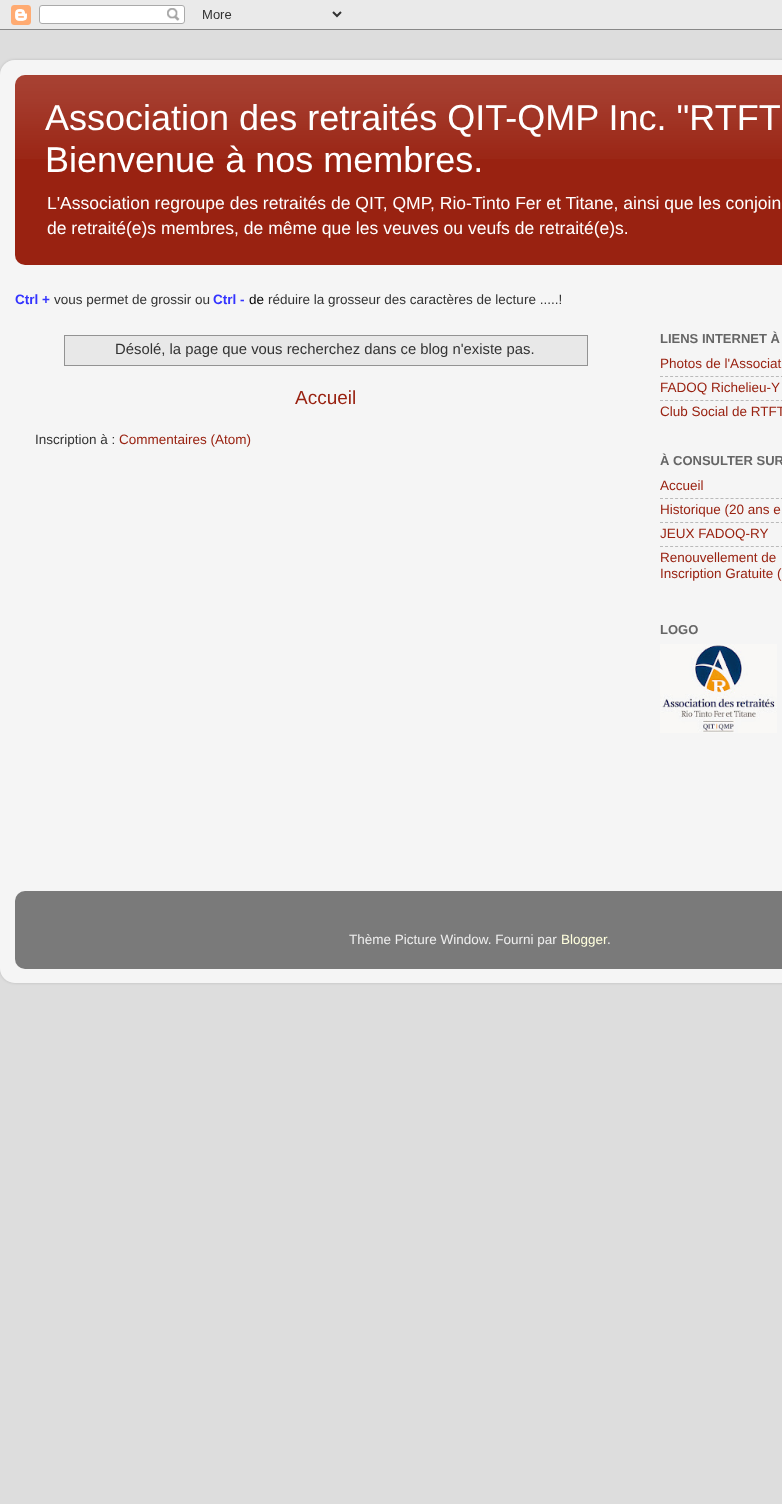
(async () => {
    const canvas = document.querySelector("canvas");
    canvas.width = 782;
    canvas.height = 1504;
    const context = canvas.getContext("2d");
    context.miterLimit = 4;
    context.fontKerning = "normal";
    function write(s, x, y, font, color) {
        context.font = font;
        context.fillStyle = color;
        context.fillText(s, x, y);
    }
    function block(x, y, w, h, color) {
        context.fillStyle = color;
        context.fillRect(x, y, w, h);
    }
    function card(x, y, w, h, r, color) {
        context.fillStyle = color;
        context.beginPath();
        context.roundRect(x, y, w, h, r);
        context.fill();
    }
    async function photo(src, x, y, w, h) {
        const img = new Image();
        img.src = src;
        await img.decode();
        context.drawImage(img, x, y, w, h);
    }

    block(0, 0, 782, 1504, "rgb(221, 221, 221)");
    await photo("media/1.png", 0, 0, 782, 30);
    context.save();
    context.beginPath();
    context.moveTo(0, 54);
    context.lineTo(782, 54);
    context.lineTo(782, 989);
    context.lineTo(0, 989);
    context.closePath();
    context.moveTo(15, 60);
    context.lineTo(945, 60);
    context.bezierCurveTo(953.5, 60, 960, 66.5, 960, 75);
    context.lineTo(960, 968);
    context.bezierCurveTo(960, 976.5, 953.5, 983, 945, 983);
    context.lineTo(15, 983);
    context.bezierCurveTo(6.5, 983, 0, 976.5, 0, 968);
    context.lineTo(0, 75);
    context.bezierCurveTo(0, 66.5, 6.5, 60, 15, 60);
    context.closePath();
    context.clip("evenodd");
    context.fillStyle = "rgba(0, 0, 0, 0.15)";
    context.filter = "blur(1.5px)";
    context.beginPath();
    context.roundRect(0, 60, 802, 923, 15);
    context.fill();
    context.filter = "none";
    context.restore();
    await photo("media/2.png", 0, 60, 782, 923);
    card(15, 75, 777, 190, 10, "rgb(153, 34, 17)");
    await photo("media/3.png", 15, 75, 767, 84);
    write("Association des retraités QIT-QMP Inc. \"RTFT", 45, 130, "36px Liberation Sans", "rgb(255, 255, 255)");
    write("Bienvenue à nos membres.", 45, 172, "36px Liberation Sans", "rgb(255, 255, 255)");
    write("L'Association regroupe des retraités de QIT, QMP, Rio-Tinto Fer et Titane, ainsi que les conjoin", 47, 209, "17.55px Liberation Sans", "rgb(255, 255, 255)");
    write("de retraité(e)s membres, de même que les veuves ou veufs de retraité(e)s.", 47, 234, "17.55px Liberation Sans", "rgb(255, 255, 255)");
    write("Ctrl +", 15, 304, "bold 13.5px Liberation Sans", "rgb(51, 51, 255)");
    write("vous permet de grossir ou", 54, 304, "13.5px Liberation Sans", "rgb(51, 51, 51)");
    write("Ctrl -", 213, 304, "bold 13.5px Liberation Sans", "rgb(51, 51, 255)");
    write("de", 249, 304, "13.5px Liberation Sans", "rgb(0, 0, 0)");
    write("réduire la grosseur des caractères de lecture .....!", 268, 304, "13.5px Liberation Sans", "rgb(51, 51, 51)");
    context.strokeStyle = "rgb(147, 147, 147)";
    context.strokeRect(64.5, 335.5, 523, 30);
    block(65, 336, 522, 29, "rgb(232, 232, 232)");
    write("Désolé, la page que vous recherchez dans ce blog n'existe pas.", 115, 354, "14.85px Liberation Sans", "rgb(51, 51, 51)");
    write("Accueil", 295, 404, "19px Liberation Sans", "rgb(153, 34, 17)");
    write("Inscription à :", 35, 444, "13.5px Liberation Sans", "rgb(51, 51, 51)");
    write("Commentaires (Atom)", 119, 444, "13.5px Liberation Sans", "rgb(153, 34, 17)");
    write("LIENS INTERNET À", 660, 343, "bold 13px Liberation Sans", "rgb(102, 102, 102)");
    write("Photos de l'Associat", 660, 368, "13.5px Liberation Sans", "rgb(153, 34, 17)");
    context.beginPath();
    context.moveTo(660, 376.5);
    context.lineTo(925, 376.5);
    context.strokeStyle = "rgb(186, 186, 186)";
    context.setLineDash([3, 2.04]);
    context.stroke();
    write("FADOQ Richelieu-Y", 660, 392, "13.5px Liberation Sans", "rgb(153, 34, 17)");
    context.beginPath();
    context.moveTo(660, 400.5);
    context.lineTo(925, 400.5);
    context.stroke();
    write("Club Social de RTFT", 660, 416, "13.5px Liberation Sans", "rgb(153, 34, 17)");
    write("À CONSULTER SUR", 660, 465, "bold 13px Liberation Sans", "rgb(102, 102, 102)");
    write("Accueil", 660, 490, "13.5px Liberation Sans", "rgb(153, 34, 17)");
    context.beginPath();
    context.moveTo(660, 498.5);
    context.lineTo(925, 498.5);
    context.stroke();
    write("Historique (20 ans e", 660, 514, "13.5px Liberation Sans", "rgb(153, 34, 17)");
    context.beginPath();
    context.moveTo(660, 522.5);
    context.lineTo(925, 522.5);
    context.stroke();
    write("JEUX FADOQ-RY", 660, 538, "13.5px Liberation Sans", "rgb(153, 34, 17)");
    context.beginPath();
    context.moveTo(660, 546.5);
    context.lineTo(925, 546.5);
    context.stroke();
    write("Renouvellement de", 660, 562, "13.5px Liberation Sans", "rgb(153, 34, 17)");
    write("Inscription Gratuite (", 660, 578, "13.5px Liberation Sans", "rgb(153, 34, 17)");
    write("LOGO", 660, 634, "bold 13px Liberation Sans", "rgb(102, 102, 102)");
    await photo("media/4.png", 660, 644, 117, 89);
    await photo("media/5.png", 15, 891, 767, 78);
    write("Thème Picture Window. Fourni par", 349, 944, "13.5px Liberation Sans", "rgb(238, 238, 238)");
    write("Blogger", 561, 944, "13.5px Liberation Sans", "rgb(255, 255, 221)");
    write(".", 607, 944, "13.5px Liberation Sans", "rgb(238, 238, 238)");
})();
